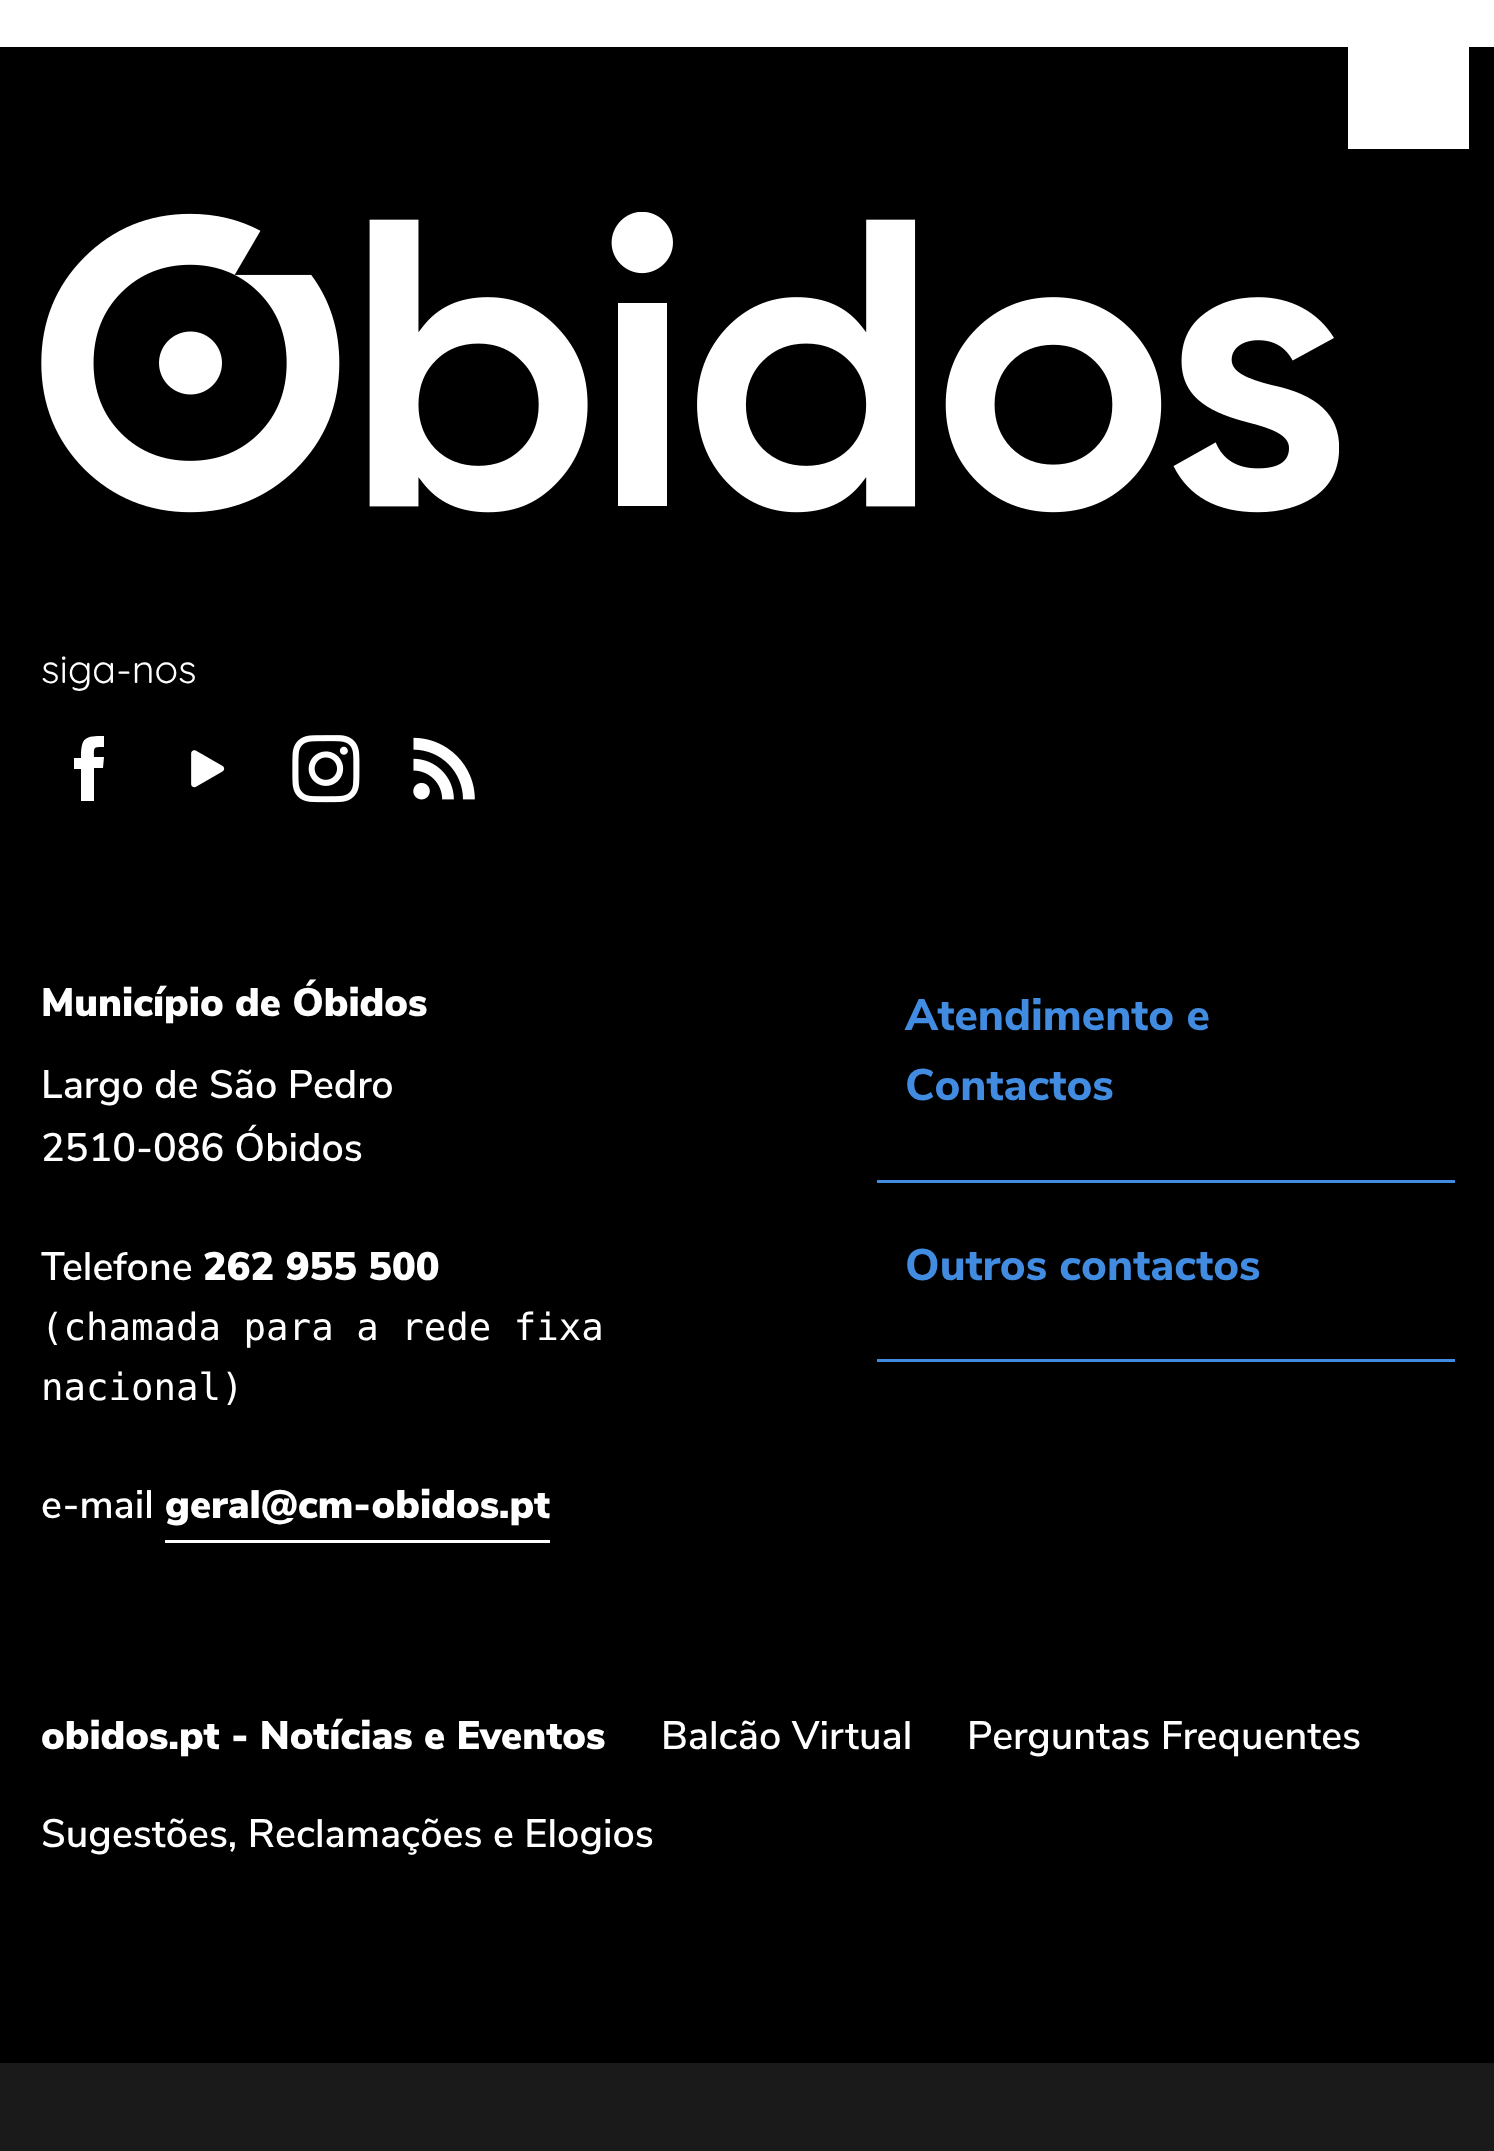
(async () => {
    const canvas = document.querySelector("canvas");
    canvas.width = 1494;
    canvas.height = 2151;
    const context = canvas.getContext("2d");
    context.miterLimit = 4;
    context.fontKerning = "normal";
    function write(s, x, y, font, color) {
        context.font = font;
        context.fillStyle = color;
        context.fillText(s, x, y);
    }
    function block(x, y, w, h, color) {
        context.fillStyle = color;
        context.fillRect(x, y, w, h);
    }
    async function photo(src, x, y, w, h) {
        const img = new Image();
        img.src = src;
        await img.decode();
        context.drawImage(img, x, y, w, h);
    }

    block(0, 0, 1494, 2151, "rgb(255, 255, 255)");
    block(0, 47, 1494, 2016, "rgb(0, 0, 0)");
    block(1348, 47, 121, 102, "rgb(255, 255, 255)");
    await photo("media/1.png", 41, 212, 1298, 301);
    write("siga-nos", 41, 683, "300 39.6px Quicksand", "rgb(255, 255, 255)");
    context.beginPath();
    context.moveTo(94, 801);
    context.lineTo(81, 801);
    context.lineTo(81, 769);
    context.lineTo(74, 769);
    context.lineTo(74, 758);
    context.lineTo(81, 758);
    context.bezierCurveTo(81, 737, 85, 736, 104, 736);
    context.lineTo(104, 747);
    context.bezierCurveTo(93, 747, 94, 747, 94, 757);
    context.lineTo(104, 757);
    context.lineTo(103, 768);
    context.lineTo(94, 768);
    context.closePath();
    context.fill();
    await photo("media/2.png", 191, 750, 34, 38);
    await photo("media/3.png", 292, 735, 68, 68);
    await photo("media/4.png", 413, 737, 62, 63);
    write("Município de Óbidos", 41, 1016, "900 39.6px Nunito Sans", "rgb(255, 255, 255)");
    write("Largo de São Pedro", 41, 1098, "600 39.6px Nunito Sans", "rgb(255, 255, 255)");
    write("2510-086 Óbidos", 41, 1161, "600 39.6px Nunito Sans", "rgb(255, 255, 255)");
    write("Telefone", 41, 1280, "600 39.6px Nunito Sans", "rgb(255, 255, 255)");
    write("262 955 500", 203, 1280, "900 39.6px Nunito Sans", "rgb(255, 255, 255)");
    write("(chamada para a rede fixa", 41, 1340, "37.4px DejaVu Sans Mono", "rgb(255, 255, 255)");
    write("nacional)", 41, 1400, "37.4px DejaVu Sans Mono", "rgb(255, 255, 255)");
    write("e-mail", 41, 1518, "600 39.6px Nunito Sans", "rgb(255, 255, 255)");
    write("geral@cm-obidos.pt", 165, 1518, "900 39.6px Nunito Sans", "rgb(255, 255, 255)");
    block(165, 1540, 385, 3, "rgb(255, 255, 255)");
    block(877, 1180, 578, 3, "rgb(65, 140, 225)");
    write("Atendimento e", 905, 1030, "800 44px Nunito Sans", "rgb(65, 140, 225)");
    write("Contactos", 905, 1100, "800 44px Nunito Sans", "rgb(65, 140, 225)");
    block(877, 1359, 578, 3, "rgb(65, 140, 225)");
    write("Outros contactos", 905, 1280, "800 44px Nunito Sans", "rgb(65, 140, 225)");
    write("obidos.pt - Notícias e Eventos", 41, 1749, "900 39.6px Nunito Sans", "rgb(255, 255, 255)");
    write("Balcão Virtual", 661, 1749, "600 39.6px Nunito Sans", "rgb(255, 255, 255)");
    write("Perguntas Frequentes", 967, 1749, "600 39.6px Nunito Sans", "rgb(255, 255, 255)");
    write("Sugestões, Reclamações e Elogios", 41, 1847, "600 39.6px Nunito Sans", "rgb(255, 255, 255)");
    block(0, 2063, 1494, 88, "rgb(26, 26, 26)");
})();
